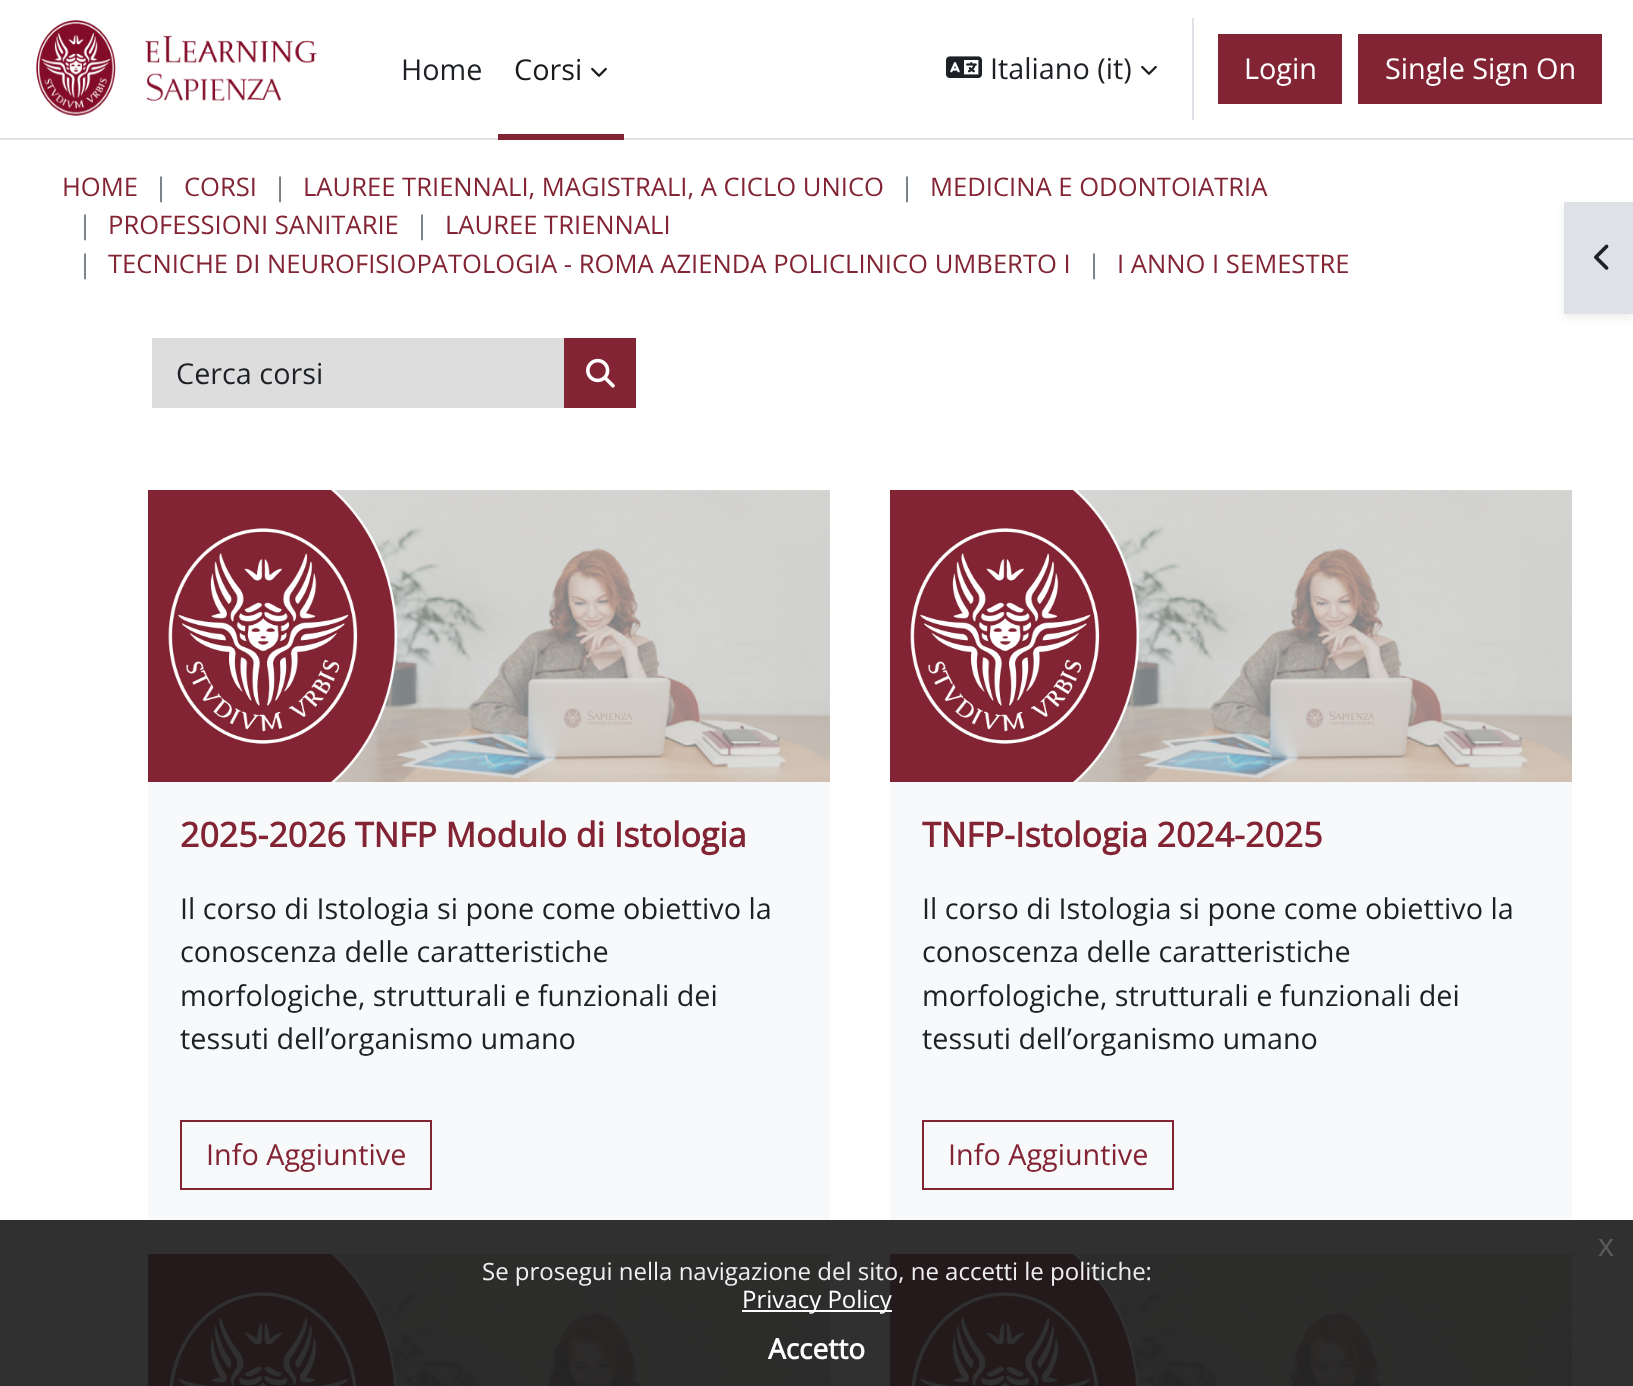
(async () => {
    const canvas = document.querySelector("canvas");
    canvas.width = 1633;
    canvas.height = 1386;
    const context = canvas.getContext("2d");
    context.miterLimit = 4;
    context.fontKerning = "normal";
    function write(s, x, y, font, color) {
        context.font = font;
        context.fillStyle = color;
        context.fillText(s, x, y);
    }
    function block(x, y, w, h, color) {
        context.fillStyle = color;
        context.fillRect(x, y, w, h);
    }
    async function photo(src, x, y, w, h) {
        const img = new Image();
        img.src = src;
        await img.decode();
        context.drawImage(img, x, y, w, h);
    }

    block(0, 0, 1633, 1386, "rgb(255, 255, 255)");
    block(0, 1220, 1633, 166, "rgb(48, 48, 48)");
    block(0, 138, 1633, 2, "rgb(222, 226, 230)");
    await photo("media/1.png", 36, 20, 281, 96);
    write("Home", 401, 80, "28.8px Open Sans", "rgb(29, 33, 37)");
    block(498, 134, 126, 6, "rgb(130, 36, 51)");
    write("Corsi", 514, 80, "28.8px Open Sans", "rgb(26, 26, 26)");
    await photo("media/2.png", 591, 67, 16, 10);
    await photo("media/3.png", 946, 56, 36, 22);
    write("Italiano (it)", 990, 79, "28.8px Open Sans", "rgb(29, 33, 37)");
    await photo("media/4.png", 1141, 65, 16, 10);
    block(1192, 18, 2, 102, "rgb(222, 226, 230)");
    block(1218, 34, 124, 70, "rgb(130, 36, 51)");
    write("Login", 1244, 79, "28.8px Open Sans", "rgb(255, 255, 255)");
    block(1358, 34, 244, 70, "rgb(130, 36, 51)");
    write("Single Sign On", 1385, 79, "28.8px Open Sans", "rgb(255, 255, 255)");
    write("HOME", 62, 196, "25.6px Open Sans", "rgb(130, 36, 51)");
    write("|", 154, 196, "25.6px Open Sans", "rgb(106, 115, 123)");
    write("CORSI", 184, 196, "25.6px Open Sans", "rgb(130, 36, 51)");
    write("|", 273, 196, "25.6px Open Sans", "rgb(106, 115, 123)");
    write("LAUREE TRIENNALI, MAGISTRALI, A CICLO UNICO", 303, 196, "25.6px Open Sans", "rgb(130, 36, 51)");
    write("|", 900, 196, "25.6px Open Sans", "rgb(106, 115, 123)");
    write("MEDICINA E ODONTOIATRIA", 930, 196, "25.6px Open Sans", "rgb(130, 36, 51)");
    write("|", 78, 234, "25.6px Open Sans", "rgb(106, 115, 123)");
    write("PROFESSIONI SANITARIE", 108, 234, "25.6px Open Sans", "rgb(130, 36, 51)");
    write("|", 415, 234, "25.6px Open Sans", "rgb(106, 115, 123)");
    write("LAUREE TRIENNALI", 445, 234, "25.6px Open Sans", "rgb(130, 36, 51)");
    write("|", 78, 273, "25.6px Open Sans", "rgb(106, 115, 123)");
    write("TECNICHE DI NEUROFISIOPATOLOGIA - ROMA AZIENDA POLICLINICO UMBERTO I", 108, 273, "25.6px Open Sans", "rgb(130, 36, 51)");
    write("|", 1087, 273, "25.6px Open Sans", "rgb(106, 115, 123)");
    write("I ANNO I SEMESTRE", 1117, 273, "25.6px Open Sans", "rgb(130, 36, 51)");
    context.fillStyle = "rgba(0, 0, 0, 0.07)";
    context.filter = "blur(4px)";
    context.beginPath();
    context.rect(1564, 206, 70, 112);
    context.fill();
    context.filter = "none";
    block(1564, 202, 69, 112, "rgb(222, 226, 230)");
    await photo("media/5.png", 1594, 244, 15, 26);
    block(152, 338, 412, 70, "rgb(221, 221, 221)");
    write("Cerca corsi", 176, 384, "28.8px Open Sans", "rgb(29, 33, 37)");
    block(564, 338, 72, 70, "rgb(130, 36, 51)");
    await photo("media/6.png", 586, 358, 29, 30);
    block(148, 782, 682, 438, "rgb(248, 249, 250)");
    await photo("media/7.png", 148, 490, 682, 292);
    write("2025-2026 TNFP Modulo di Istologia", 180, 847, "bold 33.9px Open Sans", "rgb(130, 36, 51)");
    write("Il corso di Istologia si pone come obiettivo la", 180, 919, "28.8px Open Sans", "rgb(29, 33, 37)");
    write("conoscenza delle caratteristiche", 180, 962, "28.8px Open Sans", "rgb(29, 33, 37)");
    write("morfologiche, strutturali e funzionali dei", 180, 1006, "28.8px Open Sans", "rgb(29, 33, 37)");
    write("tessuti dell’organismo umano", 180, 1049, "28.8px Open Sans", "rgb(29, 33, 37)");
    context.strokeStyle = "rgb(130, 36, 51)";
    context.lineWidth = 2;
    context.strokeRect(181, 1121, 250, 68);
    write("Info Aggiuntive", 206, 1165, "28.8px Open Sans", "rgb(130, 36, 51)");
    block(890, 782, 682, 438, "rgb(248, 249, 250)");
    await photo("media/7.png", 890, 490, 682, 292);
    write("TNFP-Istologia 2024-2025", 922, 847, "bold 33.9px Open Sans", "rgb(130, 36, 51)");
    write("Il corso di Istologia si pone come obiettivo la", 922, 919, "28.8px Open Sans", "rgb(29, 33, 37)");
    write("conoscenza delle caratteristiche", 922, 962, "28.8px Open Sans", "rgb(29, 33, 37)");
    write("morfologiche, strutturali e funzionali dei", 922, 1006, "28.8px Open Sans", "rgb(29, 33, 37)");
    write("tessuti dell’organismo umano", 922, 1049, "28.8px Open Sans", "rgb(29, 33, 37)");
    context.strokeRect(923, 1121, 250, 68);
    write("Info Aggiuntive", 948, 1165, "28.8px Open Sans", "rgb(130, 36, 51)");
    await photo("media/8.png", 148, 1254, 682, 132);
    await photo("media/8.png", 890, 1254, 682, 132);
    write("x", 1598, 1256, "32px Liberation Sans", "rgb(89, 89, 89)");
    write("Se prosegui nella navigazione del sito, ne accetti le politiche:", 482, 1280, "24px Open Sans", "rgb(239, 239, 239)");
    block(742, 1310, 150, 2, "rgb(255, 255, 255)");
    write("Privacy Policy", 742, 1308, "24px Open Sans", "rgb(255, 255, 255)");
    write("Accetto", 768, 1359, "bold 28px Open Sans", "rgb(255, 255, 255)");
})();
